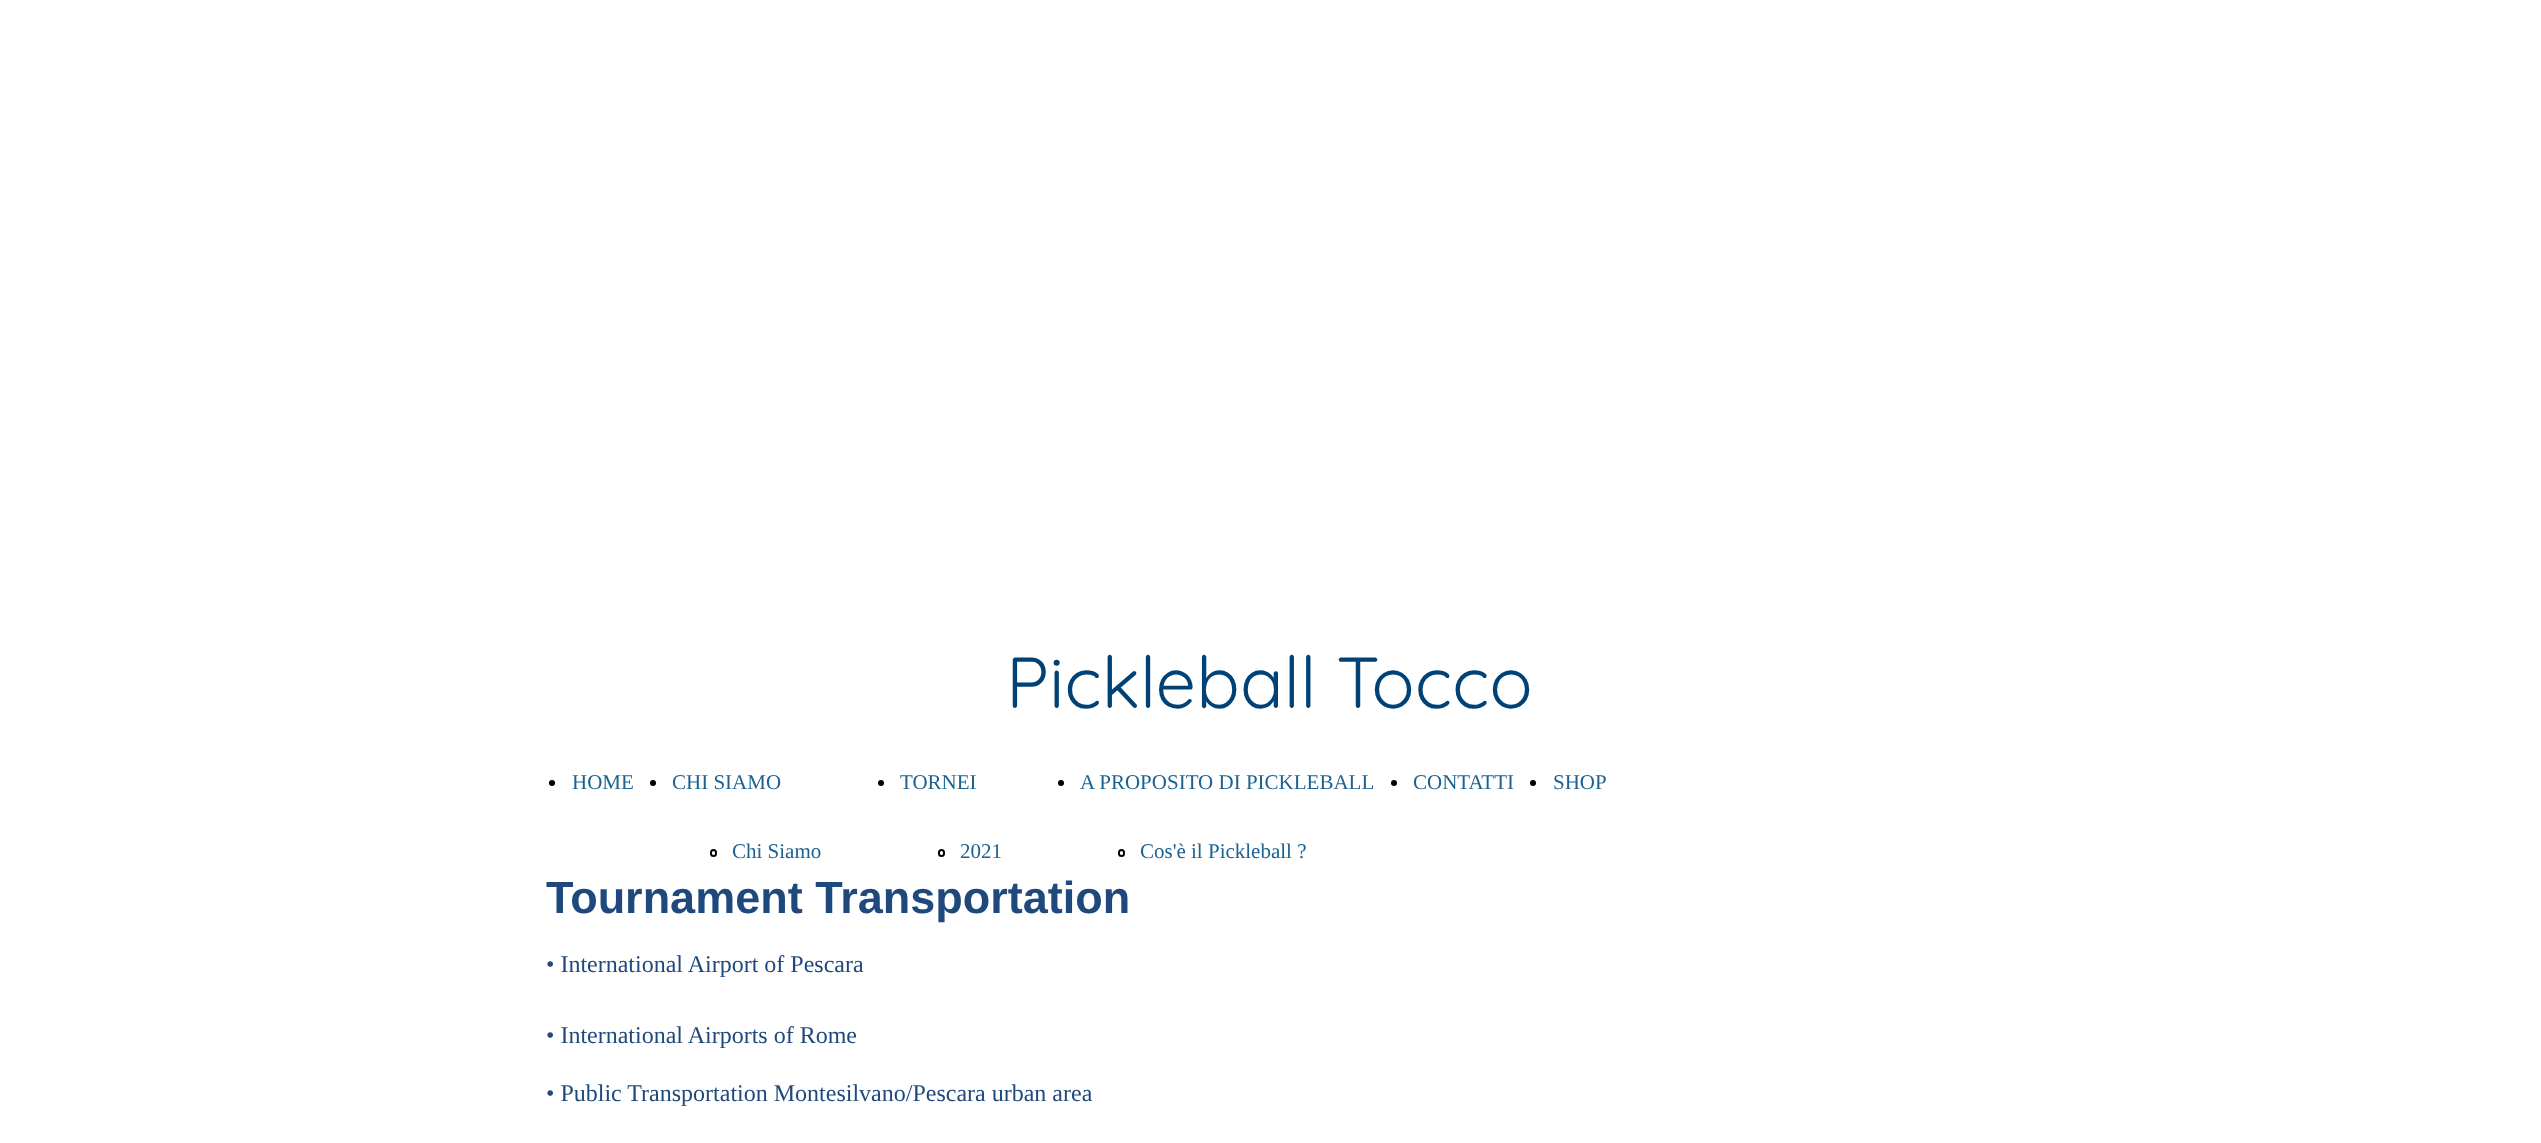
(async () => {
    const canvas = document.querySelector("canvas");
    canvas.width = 2541;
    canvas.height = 1143;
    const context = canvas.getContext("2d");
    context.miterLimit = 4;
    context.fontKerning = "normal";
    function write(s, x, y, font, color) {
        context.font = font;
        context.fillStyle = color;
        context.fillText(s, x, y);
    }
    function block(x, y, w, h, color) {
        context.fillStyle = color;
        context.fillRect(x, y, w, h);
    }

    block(0, 0, 2541, 1143, "rgb(255, 255, 255)");
    write("Pickleball Tocco", 1006, 708, "72px Quicksand", "rgb(0, 66, 118)");
    context.fillStyle = "rgb(0, 0, 0)";
    context.beginPath();
    context.arc(552, 783, 3, 0, Math.PI * 2);
    context.fill();
    write("HOME", 572, 789, "21px Liberation Serif", "rgb(28, 98, 144)");
    context.fillStyle = "rgb(0, 0, 0)";
    context.beginPath();
    context.arc(653, 783, 3, 0, Math.PI * 2);
    context.fill();
    write("CHI SIAMO", 672, 789, "21px Liberation Serif", "rgb(28, 98, 144)");
    context.beginPath();
    context.roundRect(711, 850, 5, 6, 2.5);
    context.strokeStyle = "rgb(0, 0, 0)";
    context.lineWidth = 2;
    context.stroke();
    write("Chi Siamo", 732, 858, "21px Liberation Serif", "rgb(28, 98, 144)");
    context.fillStyle = "rgb(0, 0, 0)";
    context.beginPath();
    context.arc(881, 783, 3, 0, Math.PI * 2);
    context.fill();
    write("TORNEI", 900, 789, "21px Liberation Serif", "rgb(28, 98, 144)");
    context.beginPath();
    context.roundRect(939, 850, 5, 6, 2.5);
    context.stroke();
    write("2021", 960, 858, "21px Liberation Serif", "rgb(28, 98, 144)");
    context.fillStyle = "rgb(0, 0, 0)";
    context.beginPath();
    context.arc(1061, 783, 3, 0, Math.PI * 2);
    context.fill();
    write("A PROPOSITO DI PICKLEBALL", 1080, 789, "21px Liberation Serif", "rgb(28, 98, 144)");
    context.beginPath();
    context.roundRect(1119, 850, 5, 6, 2.5);
    context.stroke();
    write("Cos'è il Pickleball ?", 1140, 858, "21px Liberation Serif", "rgb(28, 98, 144)");
    context.fillStyle = "rgb(0, 0, 0)";
    context.beginPath();
    context.arc(1394, 783, 3, 0, Math.PI * 2);
    context.fill();
    write("CONTATTI", 1413, 789, "21px Liberation Serif", "rgb(28, 98, 144)");
    context.fillStyle = "rgb(0, 0, 0)";
    context.beginPath();
    context.arc(1533, 783, 3, 0, Math.PI * 2);
    context.fill();
    write("SHOP", 1553, 789, "21px Liberation Serif", "rgb(28, 98, 144)");
    write("Tournament Transportation", 546, 913, "bold 45px Liberation Sans", "rgb(31, 73, 125)");
    write("• International Airport of Pescara", 546, 972, "24px Liberation Serif", "rgb(31, 73, 125)");
    write("• International Airports of Rome", 546, 1043, "24px Liberation Serif", "rgb(31, 73, 125)");
    write("• Public Transportation Montesilvano/Pescara urban area", 546, 1101, "24px Liberation Serif", "rgb(31, 73, 125)");
})();
